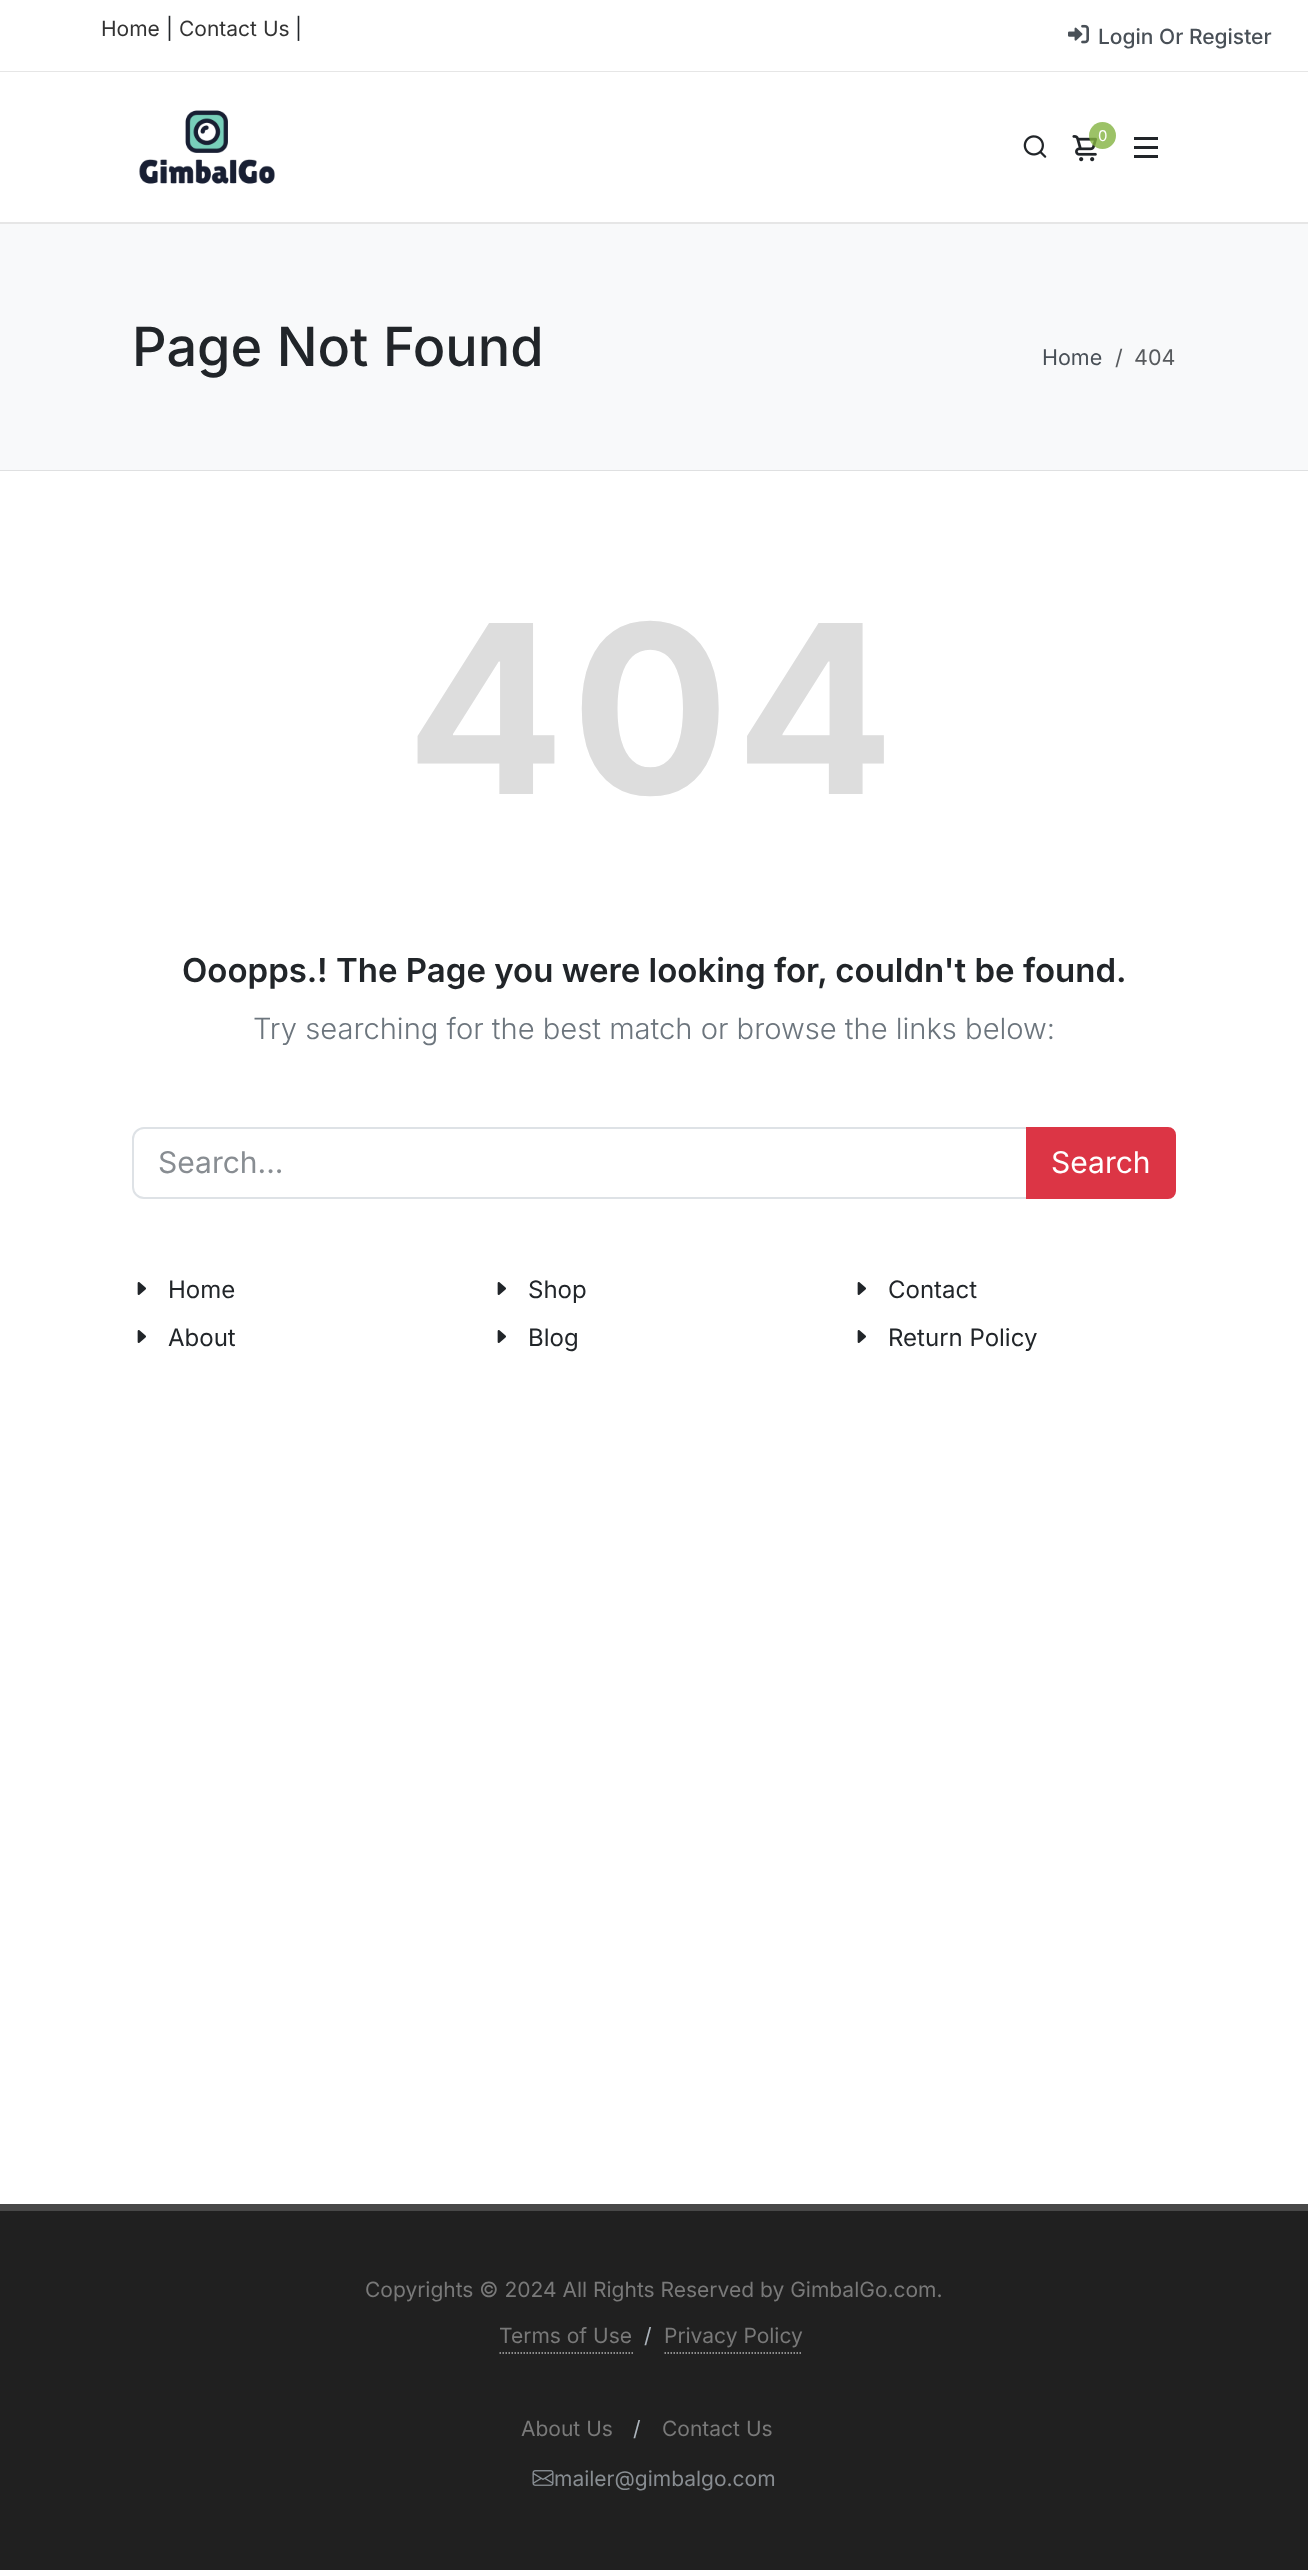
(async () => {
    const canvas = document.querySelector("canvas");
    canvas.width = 1308;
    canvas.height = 2570;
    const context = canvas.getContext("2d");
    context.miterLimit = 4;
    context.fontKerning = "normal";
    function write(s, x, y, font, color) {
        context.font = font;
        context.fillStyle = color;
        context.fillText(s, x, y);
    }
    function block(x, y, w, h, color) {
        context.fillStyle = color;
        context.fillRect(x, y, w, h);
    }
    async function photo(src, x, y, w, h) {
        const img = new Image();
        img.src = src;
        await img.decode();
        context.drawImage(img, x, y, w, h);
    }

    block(0, 0, 1308, 2570, "rgb(255, 255, 255)");
    block(0, 71, 1308, 1, "rgb(230, 230, 230)");
    write("Home", 101, 36, "21px Inter", "rgb(51, 51, 51)");
    write("|", 166, 36, "21px Inter", "rgb(33, 37, 41)");
    write("Contact Us", 179, 36, "21px Inter", "rgb(51, 51, 51)");
    write("|", 295, 36, "21px Inter", "rgb(33, 37, 41)");
    await photo("media/1.png", 1068, 24, 21, 20);
    write("Login Or Register", 1098, 44, "500 21px Inter", "rgb(73, 80, 87)");
    block(0, 222, 1308, 2, "rgb(230, 230, 230)");
    await photo("media/2.png", 139, 110, 136, 74);
    await photo("media/3.png", 1023, 135, 24, 23);
    await photo("media/4.png", 1072, 135, 25, 27);
    context.fillStyle = "rgba(131, 179, 65, 0.8)";
    context.beginPath();
    context.arc(1102.5, 135.5, 13.5, 0, Math.PI * 2);
    context.fill();
    write("0", 1098, 141, "15px Inter", "rgb(255, 255, 255)");
    block(1134, 146, 24, 3, "rgb(33, 37, 41)");
    block(1134, 137, 24, 3, "rgb(33, 37, 41)");
    block(1134, 155, 24, 3, "rgb(33, 37, 41)");
    block(0, 224, 1308, 246, "rgb(248, 249, 250)");
    block(0, 470, 1308, 1, "rgb(223, 224, 225)");
    write("Page Not Found", 132, 366, "500 54px Inter", "rgb(33, 37, 41)");
    write("Home", 1042, 365, "21.5px Inter", "rgb(73, 80, 87)");
    write("/", 1115, 365, "21.5px Inter", "rgb(87, 90, 93)");
    write("404", 1134, 365, "21.5px Inter", "rgb(87, 90, 93)");
    context.letterSpacing = "6px";
    write("404", 406, 794, "bold 235px Inter", "rgb(221, 221, 221)");
    context.letterSpacing = "0px";
    write("Ooopps.! The Page you were looking for, couldn't be found.", 182, 982, "600 33px Inter", "rgb(33, 37, 41)");
    write("Try searching for the best match or browse the links below:", 253, 1039, "300 29.15px Inter", "rgb(108, 117, 125)");
    context.beginPath();
    context.roundRect(133, 1128, 894, 70, [11, 0, 0, 11]);
    context.strokeStyle = "rgb(222, 226, 230)";
    context.lineWidth = 2;
    context.stroke();
    write("Search...", 158, 1173, "30px Inter", "rgb(136, 141, 146)");
    context.fillStyle = "rgb(220, 53, 69)";
    context.beginPath();
    context.roundRect(1027, 1128, 148, 70, [0, 7, 7, 0]);
    context.fill();
    context.strokeStyle = "rgb(220, 53, 69)";
    context.stroke();
    write("Search", 1051, 1173, "30px Inter", "rgb(255, 255, 255)");
    await photo("media/5.png", 137, 1282, 9, 13);
    write("Home", 168, 1298, "24px Inter", "rgb(33, 37, 41)");
    await photo("media/5.png", 137, 1330, 9, 13);
    write("About", 168, 1346, "24px Inter", "rgb(33, 37, 41)");
    await photo("media/5.png", 497, 1282, 9, 13);
    write("Shop", 528, 1298, "24px Inter", "rgb(33, 37, 41)");
    await photo("media/5.png", 497, 1330, 9, 13);
    write("Blog", 528, 1346, "24px Inter", "rgb(33, 37, 41)");
    await photo("media/5.png", 857, 1282, 9, 13);
    write("Contact", 888, 1298, "24px Inter", "rgb(33, 37, 41)");
    await photo("media/5.png", 857, 1330, 9, 13);
    write("Return Policy", 888, 1346, "24px Inter", "rgb(33, 37, 41)");
    block(0, 2204, 1308, 7, "rgb(72, 72, 72)");
    block(0, 2211, 1308, 359, "rgb(32, 32, 32)");
    write("Copyrights © 2024 All Rights Reserved by GimbalGo.com.", 365, 2297, "21px Inter", "rgb(121, 121, 121)");
    context.beginPath();
    context.moveTo(499.5, 2353);
    context.lineTo(633, 2353);
    context.strokeStyle = "rgb(177, 177, 177)";
    context.lineWidth = 1.5;
    context.setLineDash([1.5, 1.5]);
    context.stroke();
    write("Terms of Use", 499, 2343, "21px Inter", "rgb(121, 121, 121)");
    write("/", 644, 2343, "21px Inter", "rgb(173, 181, 189)");
    context.beginPath();
    context.moveTo(664.5, 2353);
    context.lineTo(802.5, 2353);
    context.stroke();
    write("Privacy Policy", 664, 2343, "21px Inter", "rgb(121, 121, 121)");
    write("About Us", 521, 2436, "21px Inter", "rgb(121, 121, 121)");
    write("/", 633, 2436, "21px Inter", "rgb(173, 181, 189)");
    write("Contact Us", 662, 2436, "21px Inter", "rgb(121, 121, 121)");
    await photo("media/6.png", 532, 2470, 22, 16);
    write("mailer@gimbalgo.com", 554, 2486, "21px Inter", "rgb(136, 141, 146)");
})();
